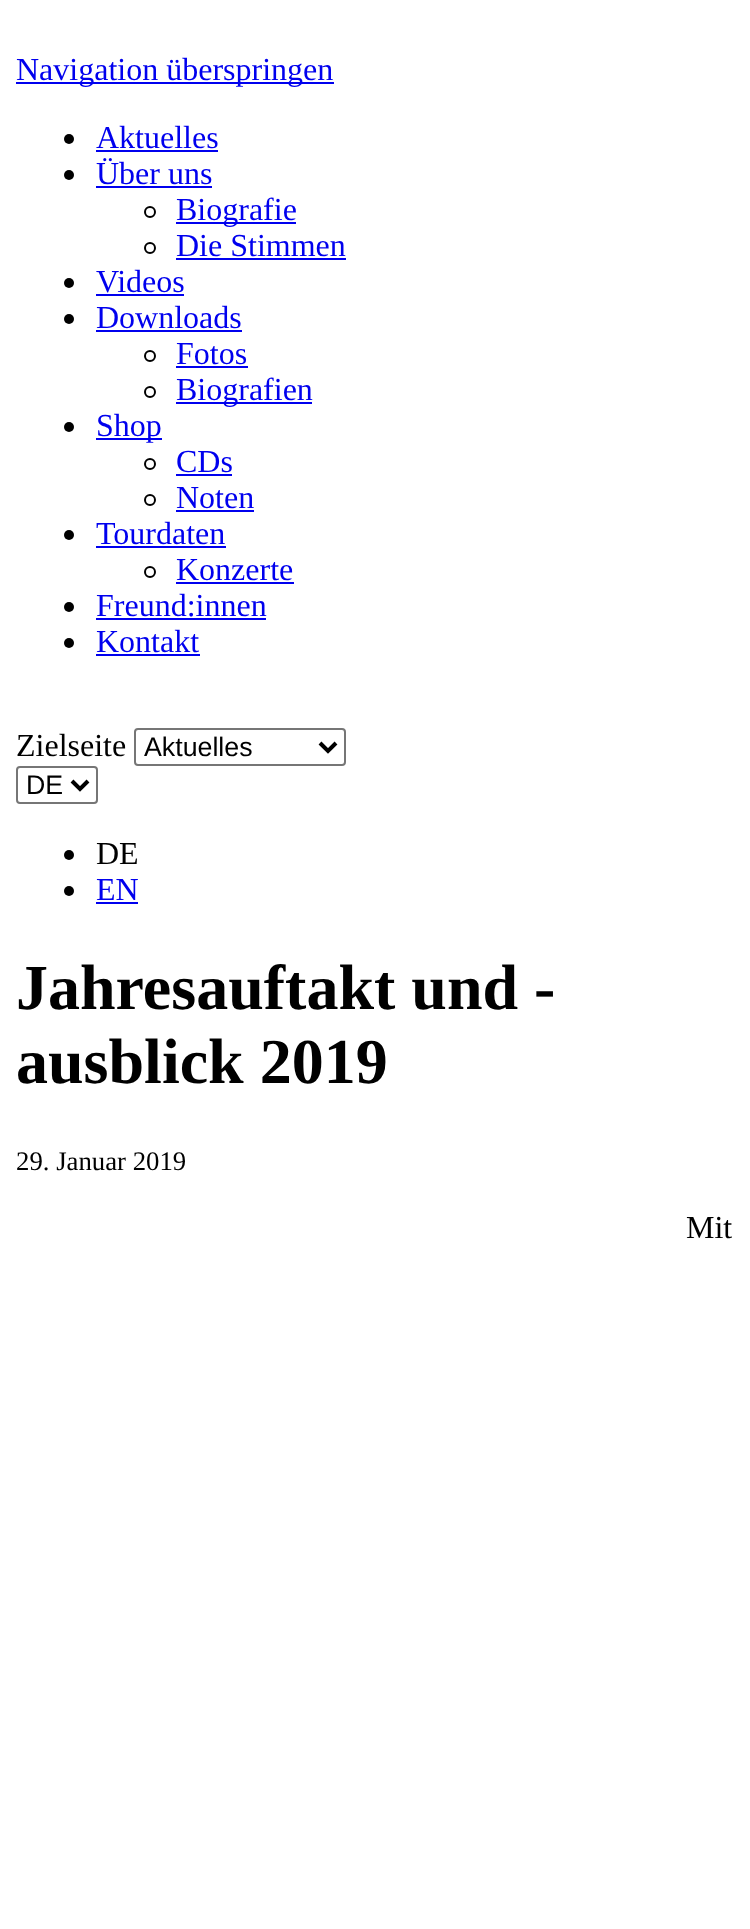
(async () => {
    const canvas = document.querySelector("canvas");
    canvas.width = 750;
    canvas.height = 1929;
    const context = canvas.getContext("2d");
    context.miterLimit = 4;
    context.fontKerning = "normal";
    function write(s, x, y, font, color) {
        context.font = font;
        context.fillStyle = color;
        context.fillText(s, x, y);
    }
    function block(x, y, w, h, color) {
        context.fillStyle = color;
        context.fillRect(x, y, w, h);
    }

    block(0, 0, 750, 1929, "rgb(255, 255, 255)");
    block(16, 82, 318, 2, "rgb(0, 0, 238)");
    write("Navigation überspringen", 16, 80, "32px Liberation Serif", "rgb(0, 0, 238)");
    context.fillStyle = "rgb(0, 0, 0)";
    context.beginPath();
    context.arc(69, 139, 5, 0, Math.PI * 2);
    context.fill();
    write("Aktuelles", 96, 148, "32px Liberation Serif", "rgb(0, 0, 238)");
    block(96, 150, 122, 2, "rgb(0, 0, 238)");
    context.fillStyle = "rgb(0, 0, 0)";
    context.beginPath();
    context.arc(69, 175, 5, 0, Math.PI * 2);
    context.fill();
    write("Über uns", 96, 184, "32px Liberation Serif", "rgb(0, 0, 238)");
    block(96, 186, 116, 2, "rgb(0, 0, 238)");
    context.beginPath();
    context.arc(150, 212, 5, 0, Math.PI * 2);
    context.strokeStyle = "rgb(0, 0, 0)";
    context.lineWidth = 2;
    context.stroke();
    block(176, 222, 120, 2, "rgb(0, 0, 238)");
    write("Biografie", 176, 220, "32px Liberation Serif", "rgb(0, 0, 238)");
    context.beginPath();
    context.arc(150, 248, 5, 0, Math.PI * 2);
    context.stroke();
    write("Die Stimmen", 176, 256, "32px Liberation Serif", "rgb(0, 0, 238)");
    block(176, 258, 170, 2, "rgb(0, 0, 238)");
    context.fillStyle = "rgb(0, 0, 0)";
    context.beginPath();
    context.arc(69, 283, 5, 0, Math.PI * 2);
    context.fill();
    write("Videos", 96, 292, "32px Liberation Serif", "rgb(0, 0, 238)");
    block(96, 294, 88, 2, "rgb(0, 0, 238)");
    context.fillStyle = "rgb(0, 0, 0)";
    context.beginPath();
    context.arc(69, 319, 5, 0, Math.PI * 2);
    context.fill();
    write("Downloads", 96, 328, "32px Liberation Serif", "rgb(0, 0, 238)");
    block(96, 330, 146, 2, "rgb(0, 0, 238)");
    context.beginPath();
    context.arc(150, 356, 5, 0, Math.PI * 2);
    context.stroke();
    write("Fotos", 176, 364, "32px Liberation Serif", "rgb(0, 0, 238)");
    block(176, 366, 72, 2, "rgb(0, 0, 238)");
    context.beginPath();
    context.arc(150, 392, 5, 0, Math.PI * 2);
    context.stroke();
    block(176, 402, 136, 2, "rgb(0, 0, 238)");
    write("Biografien", 176, 400, "32px Liberation Serif", "rgb(0, 0, 238)");
    context.fillStyle = "rgb(0, 0, 0)";
    context.beginPath();
    context.arc(69, 427, 5, 0, Math.PI * 2);
    context.fill();
    block(96, 438, 66, 2, "rgb(0, 0, 238)");
    write("Shop", 96, 436, "32px Liberation Serif", "rgb(0, 0, 238)");
    context.beginPath();
    context.arc(150, 464, 5, 0, Math.PI * 2);
    context.stroke();
    write("CDs", 176, 472, "32px Liberation Serif", "rgb(0, 0, 238)");
    block(176, 474, 56, 2, "rgb(0, 0, 238)");
    context.beginPath();
    context.arc(150, 500, 5, 0, Math.PI * 2);
    context.stroke();
    write("Noten", 176, 508, "32px Liberation Serif", "rgb(0, 0, 238)");
    block(176, 510, 78, 2, "rgb(0, 0, 238)");
    context.fillStyle = "rgb(0, 0, 0)";
    context.beginPath();
    context.arc(69, 535, 5, 0, Math.PI * 2);
    context.fill();
    write("Tourdaten", 96, 544, "32px Liberation Serif", "rgb(0, 0, 238)");
    block(96, 546, 130, 2, "rgb(0, 0, 238)");
    context.beginPath();
    context.arc(150, 572, 5, 0, Math.PI * 2);
    context.stroke();
    write("Konzerte", 176, 580, "32px Liberation Serif", "rgb(0, 0, 238)");
    block(176, 582, 118, 2, "rgb(0, 0, 238)");
    context.fillStyle = "rgb(0, 0, 0)";
    context.beginPath();
    context.arc(69, 607, 5, 0, Math.PI * 2);
    context.fill();
    write("Freund:innen", 96, 616, "32px Liberation Serif", "rgb(0, 0, 238)");
    block(96, 618, 170, 2, "rgb(0, 0, 238)");
    context.fillStyle = "rgb(0, 0, 0)";
    context.beginPath();
    context.arc(69, 643, 5, 0, Math.PI * 2);
    context.fill();
    write("Kontakt", 96, 652, "32px Liberation Serif", "rgb(0, 0, 238)");
    block(96, 654, 104, 2, "rgb(0, 0, 238)");
    write("Zielseite", 16, 756, "32px Liberation Serif", "rgb(0, 0, 0)");
    context.beginPath();
    context.roundRect(135, 729, 210, 36, 3);
    context.strokeStyle = "rgb(118, 118, 118)";
    context.stroke();
    context.beginPath();
    context.moveTo(320, 743);
    context.lineTo(328, 751);
    context.lineTo(336, 743);
    context.strokeStyle = "rgb(0, 0, 0)";
    context.lineWidth = 4;
    context.stroke();
    write("Aktuelles", 144, 756, "26.75px Liberation Sans", "rgb(0, 0, 0)");
    context.beginPath();
    context.roundRect(17, 767, 80, 36, 3);
    context.strokeStyle = "rgb(118, 118, 118)";
    context.lineWidth = 2;
    context.stroke();
    context.beginPath();
    context.moveTo(72, 781);
    context.lineTo(80, 789);
    context.lineTo(88, 781);
    context.strokeStyle = "rgb(0, 0, 0)";
    context.lineWidth = 4;
    context.stroke();
    write("DE", 26, 794, "26.75px Liberation Sans", "rgb(0, 0, 0)");
    context.beginPath();
    context.arc(69, 855, 5, 0, Math.PI * 2);
    context.fill();
    write("DE", 96, 864, "32px Liberation Serif", "rgb(0, 0, 0)");
    context.beginPath();
    context.arc(69, 891, 5, 0, Math.PI * 2);
    context.fill();
    write("EN", 96, 900, "32px Liberation Serif", "rgb(0, 0, 238)");
    block(96, 902, 42, 2, "rgb(0, 0, 238)");
    write("Jahresauftakt und -", 16, 1009, "bold 64px Liberation Serif", "rgb(0, 0, 0)");
    write("ausblick 2019", 16, 1083, "bold 64px Liberation Serif", "rgb(0, 0, 0)");
    write("29. Januar 2019", 16, 1170, "26.75px Liberation Serif", "rgb(0, 0, 0)");
    write("Mit", 686, 1238, "32px Liberation Serif", "rgb(0, 0, 0)");
})();
